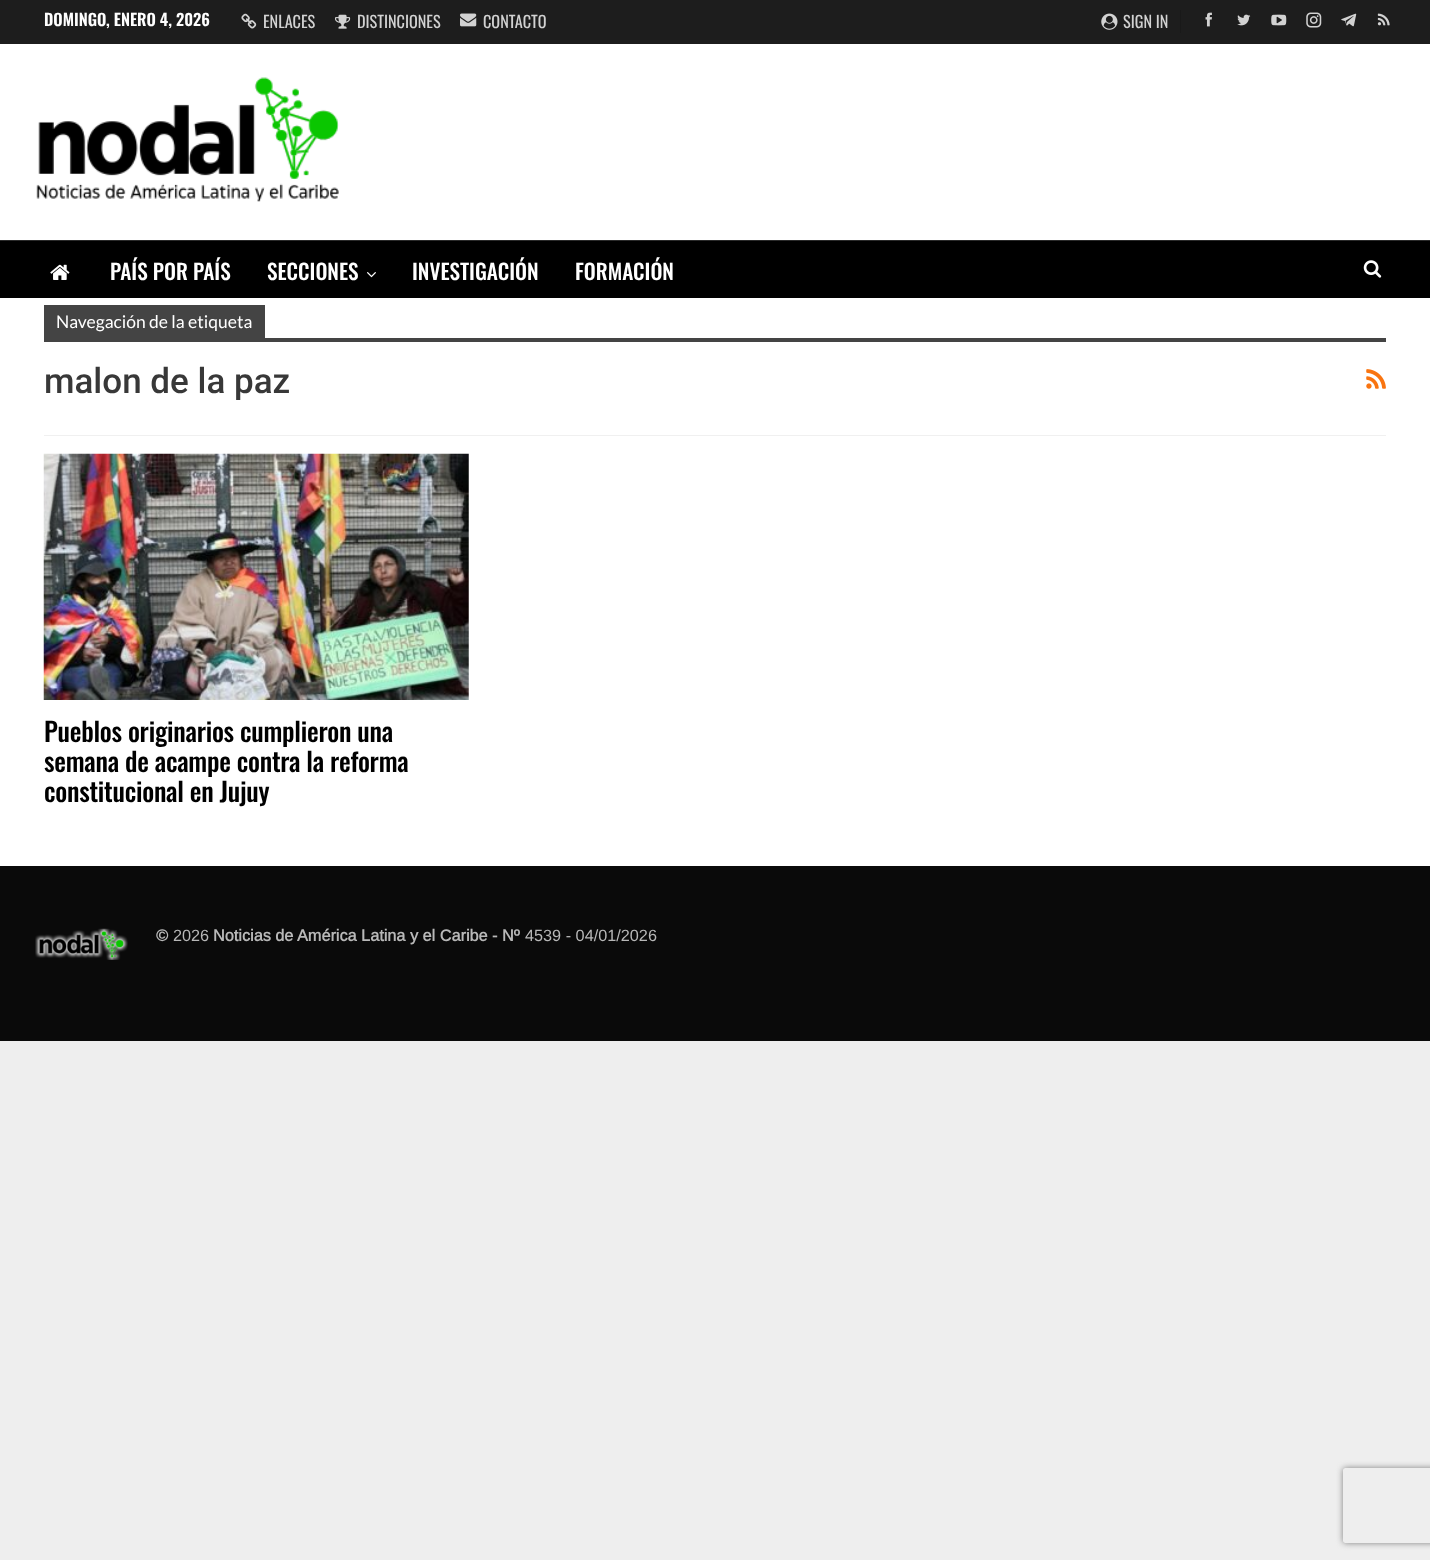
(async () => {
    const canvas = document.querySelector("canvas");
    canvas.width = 1430;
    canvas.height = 1560;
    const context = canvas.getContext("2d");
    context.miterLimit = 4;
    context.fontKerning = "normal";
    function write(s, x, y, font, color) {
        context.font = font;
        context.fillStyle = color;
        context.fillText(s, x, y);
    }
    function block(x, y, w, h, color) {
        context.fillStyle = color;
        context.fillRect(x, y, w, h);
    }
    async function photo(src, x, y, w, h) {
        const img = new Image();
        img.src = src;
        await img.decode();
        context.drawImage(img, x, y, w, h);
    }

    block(0, 0, 1430, 1560, "rgb(238, 238, 238)");
    block(0, 44, 1430, 822, "rgb(255, 255, 255)");
    block(0, 0, 1430, 44, "rgb(29, 29, 29)");
    write("DOMINGO, ENERO 4, 2026", 44, 26, "600 16.25px Oswald", "rgb(255, 255, 255)");
    await photo("media/1.png", 241, 13, 16, 16);
    write("ENLACES", 263, 28, "16.25px Oswald", "rgb(210, 210, 210)");
    await photo("media/2.png", 335, 14, 16, 15);
    write("DISTINCIONES", 357, 28, "16.25px Oswald", "rgb(210, 210, 210)");
    await photo("media/3.png", 460, 13, 17, 14);
    write("CONTACTO", 483, 28, "16.25px Oswald", "rgb(210, 210, 210)");
    await photo("media/4.png", 1101, 13, 17, 17);
    write("SIGN IN", 1123, 28, "16.25px Oswald", "rgb(210, 210, 210)");
    block(1180, 10, 1, 23, "rgb(25, 25, 25)");
    await photo("media/5.png", 1205, 12, 7, 15);
    await photo("media/6.png", 1237, 14, 14, 12);
    await photo("media/7.png", 1271, 14, 16, 12);
    await photo("media/8.png", 1306, 12, 16, 16);
    await photo("media/9.png", 1341, 13, 16, 14);
    await photo("media/10.png", 1377, 13, 13, 13);
    await photo("media/11.png", 36, 77, 303, 125);
    block(0, 241, 1430, 57, "rgb(0, 0, 0)");
    block(0, 240, 1430, 1, "rgb(42, 42, 42)");
    await photo("media/12.png", 50, 264, 20, 16);
    write("PAÍS POR PAÍS", 110, 280, "500 21.25px Oswald", "rgb(255, 255, 255)");
    write("SECCIONES", 267, 280, "500 21.25px Oswald", "rgb(255, 255, 255)");
    await photo("media/13.png", 367, 272, 9, 6);
    write("INVESTIGACIÓN", 412, 280, "500 21.25px Oswald", "rgb(255, 255, 255)");
    write("FORMACIÓN", 575, 280, "500 21.25px Oswald", "rgb(255, 255, 255)");
    await photo("media/14.png", 1363, 260, 19, 18);
    block(44, 435, 1342, 1, "rgb(240, 240, 240)");
    block(44, 305, 221, 33, "rgb(68, 68, 68)");
    write("Navegación de la etiqueta", 56, 328, "17.5px Lato", "rgb(255, 255, 255)");
    block(44, 338, 1342, 4, "rgb(68, 68, 68)");
    write("malon de la paz", 44, 393, "500 35px Roboto", "rgb(56, 56, 56)");
    await photo("media/15.png", 1366, 369, 20, 20);
    await photo("media/16.png", 43, 453, 426, 247);
    context.letterSpacing = "-0.25px";
    write("Pueblos originarios cumplieron una", 44, 742, "500 26.25px Oswald", "rgb(0, 0, 0)");
    write("semana de acampe contra la reforma", 44, 772, "500 26.25px Oswald", "rgb(0, 0, 0)");
    write("constitucional en Jujuy", 44, 802, "500 26.25px Oswald", "rgb(0, 0, 0)");
    block(0, 866, 1430, 175, "rgb(10, 10, 10)");
    await photo("media/17.png", 35, 928, 93, 32);
    context.letterSpacing = "0px";
    write("©", 156, 941, "bold 16.25px Arimo", "rgb(184, 184, 184)");
    write("2026", 173, 941, "16.25px Arimo", "rgb(184, 184, 184)");
    write("Noticias de América Latina y el Caribe - Nº", 213, 941, "bold 16.25px Arimo", "rgb(184, 184, 184)");
    write("4539 - 04/01/2026", 525, 941, "16.25px Arimo", "rgb(184, 184, 184)");
    context.save();
    context.beginPath();
    context.moveTo(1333, 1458);
    context.lineTo(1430, 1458);
    context.lineTo(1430, 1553);
    context.lineTo(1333, 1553);
    context.closePath();
    context.moveTo(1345.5, 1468);
    context.lineTo(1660.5, 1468);
    context.bezierCurveTo(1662, 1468, 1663, 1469, 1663, 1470.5);
    context.lineTo(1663, 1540.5);
    context.bezierCurveTo(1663, 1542, 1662, 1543, 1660.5, 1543);
    context.lineTo(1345.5, 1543);
    context.bezierCurveTo(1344, 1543, 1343, 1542, 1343, 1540.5);
    context.lineTo(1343, 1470.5);
    context.bezierCurveTo(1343, 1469, 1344, 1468, 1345.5, 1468);
    context.closePath();
    context.clip("evenodd");
    context.fillStyle = "rgb(128, 128, 128)";
    context.filter = "blur(3px)";
    context.beginPath();
    context.roundRect(1343, 1468, 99, 75, 2.5);
    context.fill();
    context.filter = "none";
    context.restore();
})();
